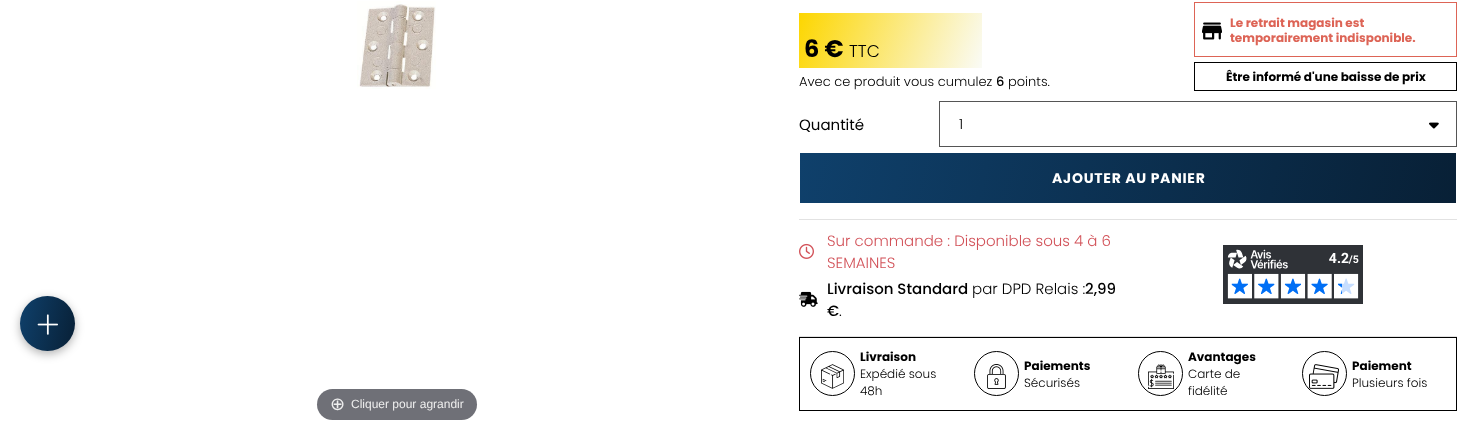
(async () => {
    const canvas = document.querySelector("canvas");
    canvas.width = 1472;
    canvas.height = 426;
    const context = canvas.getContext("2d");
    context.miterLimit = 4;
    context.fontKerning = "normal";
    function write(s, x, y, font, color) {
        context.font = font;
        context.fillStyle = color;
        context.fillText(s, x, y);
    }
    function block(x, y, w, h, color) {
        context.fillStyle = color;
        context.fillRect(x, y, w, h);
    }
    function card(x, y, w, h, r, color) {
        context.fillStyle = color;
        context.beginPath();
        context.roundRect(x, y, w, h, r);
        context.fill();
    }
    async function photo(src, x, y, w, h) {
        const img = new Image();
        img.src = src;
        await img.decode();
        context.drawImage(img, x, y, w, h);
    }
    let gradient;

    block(0, 0, 1472, 426, "rgb(255, 255, 255)");
    context.fillStyle = "rgba(0, 0, 0, 0.3)";
    context.filter = "blur(5px)";
    context.beginPath();
    context.roundRect(20, 299, 55, 55, 27.5);
    context.fill();
    context.filter = "none";
    gradient = context.createLinearGradient(16, 317, 79, 330);
    gradient.addColorStop(0, "rgb(15, 64, 107)");
    gradient.addColorStop(1, "rgb(8, 32, 54)");
    context.fillStyle = gradient;
    context.beginPath();
    context.arc(47.5, 323.5, 27.5, 0, Math.PI * 2);
    context.fill();
    await photo("media/1.png", 37, 314, 21, 21);
    gradient = context.createLinearGradient(801, 7.9, 980, 73);
    gradient.addColorStop(0, "rgb(253, 214, 0)");
    gradient.addColorStop(1, "rgb(250, 251, 246)");
    context.fillStyle = gradient;
    context.fillRect(799, 13, 183, 55);
    write("6 €", 804, 57, "bold 24px Poppins", "rgb(0, 0, 0)");
    write("TTC", 849, 57, "300 17px Poppins", "rgb(0, 0, 0)");
    write("Avec ce produit vous cumulez", 799, 86, "300 13px Poppins", "rgb(0, 0, 0)");
    write("6", 996, 86, "500 13px Poppins", "rgb(0, 0, 0)");
    write("points.", 1008, 86, "300 13px Poppins", "rgb(0, 0, 0)");
    context.strokeStyle = "rgb(221, 100, 86)";
    context.strokeRect(1194.5, 2.5, 262, 54);
    await photo("media/2.png", 1202, 22, 20, 18);
    write("Le retrait magasin est", 1230, 27, "bold 12px Poppins", "rgb(221, 100, 86)");
    write("temporairement indisponible.", 1230, 42, "bold 12px Poppins", "rgb(221, 100, 86)");
    context.strokeStyle = "rgb(0, 0, 0)";
    context.strokeRect(1194.5, 62.5, 262, 28);
    write("Être informé d'une baisse de prix", 1226, 81, "bold 12px Poppins", "rgb(0, 0, 0)");
    write("Quantité", 799, 130, "15px Poppins", "rgb(0, 0, 0)");
    context.strokeStyle = "rgb(85, 85, 85)";
    context.strokeRect(939.5, 101.5, 517, 45);
    write("1", 959, 129, "300 14px Poppins", "rgb(0, 0, 0)");
    await photo("media/3.png", 1429, 122, 10, 7);
    gradient = context.createLinearGradient(809, 110, 1447, 246);
    gradient.addColorStop(0, "rgb(15, 64, 107)");
    gradient.addColorStop(1, "rgb(8, 32, 54)");
    context.fillStyle = gradient;
    context.fillRect(800, 153, 656, 50);
    context.letterSpacing = "0.75px";
    write("AJOUTER AU PANIER", 1052, 183, "bold 14px Poppins", "rgb(255, 255, 255)");
    block(799, 219, 658, 1, "rgb(226, 226, 226)");
    block(799, 336, 658, 1, "rgb(226, 226, 226)");
    await photo("media/4.png", 799, 243, 15, 16);
    context.letterSpacing = "0px";
    write("Sur commande : Disponible sous 4 à 6", 827, 246, "300 15px Poppins", "rgb(210, 82, 89)");
    write("SEMAINES", 827, 268, "300 15px Poppins", "rgb(210, 82, 89)");
    await photo("media/5.png", 799, 291, 19, 16);
    write("Livraison Standard", 827, 294, "500 15px Poppins", "rgb(0, 0, 0)");
    write("par DPD Relais :", 972, 294, "300 15px Poppins", "rgb(0, 0, 0)");
    write("2,99", 1085, 294, "500 15px Poppins", "rgb(0, 0, 0)");
    write("€", 827, 316, "500 15px Poppins", "rgb(0, 0, 0)");
    write(".", 839, 316, "300 15px Poppins", "rgb(0, 0, 0)");
    await photo("media/6.png", 1223, 245, 140, 59);
    context.strokeStyle = "rgb(0, 0, 0)";
    context.strokeRect(799.5, 337.5, 657, 73);
    context.beginPath();
    context.arc(832.5, 373.5, 22, 0, Math.PI * 2);
    context.stroke();
    await photo("media/7.png", 821, 364, 23, 25);
    write("Livraison", 860, 361, "bold 12px Poppins", "rgb(0, 0, 0)");
    write("Expédié sous", 860, 378, "300 12px Poppins", "rgb(0, 0, 0)");
    write("48h", 860, 395, "300 12px Poppins", "rgb(0, 0, 0)");
    context.beginPath();
    context.arc(996.5, 373.5, 22, 0, Math.PI * 2);
    context.stroke();
    await photo("media/8.png", 987, 364, 19, 25);
    write("Paiements", 1024, 370, "bold 12px Poppins", "rgb(0, 0, 0)");
    write("Sécurisés", 1024, 387, "300 12px Poppins", "rgb(0, 0, 0)");
    context.beginPath();
    context.arc(1160.5, 373.5, 22, 0, Math.PI * 2);
    context.stroke();
    await photo("media/9.png", 1148, 364, 26, 25);
    write("Avantages", 1188, 361, "bold 12px Poppins", "rgb(0, 0, 0)");
    write("Carte de", 1188, 378, "300 12px Poppins", "rgb(0, 0, 0)");
    write("fidélité", 1188, 395, "300 12px Poppins", "rgb(0, 0, 0)");
    context.beginPath();
    context.arc(1324.5, 373.5, 22, 0, Math.PI * 2);
    context.stroke();
    await photo("media/10.png", 1309, 364, 30, 25);
    write("Paiement", 1352, 370, "bold 12px Poppins", "rgb(0, 0, 0)");
    write("Plusieurs fois", 1352, 387, "300 12px Poppins", "rgb(0, 0, 0)");
    await photo("media/11.png", 357, 1, 79, 88);
    card(317, 389, 160, 31, 15.5, "rgb(111, 112, 119)");
    write("⊕", 330, 410, "18px DejaVu Sans", "rgb(238, 238, 238)");
    write("Cliquer pour agrandir", 351, 408, "12px Liberation Sans", "rgb(238, 238, 238)");
})();
